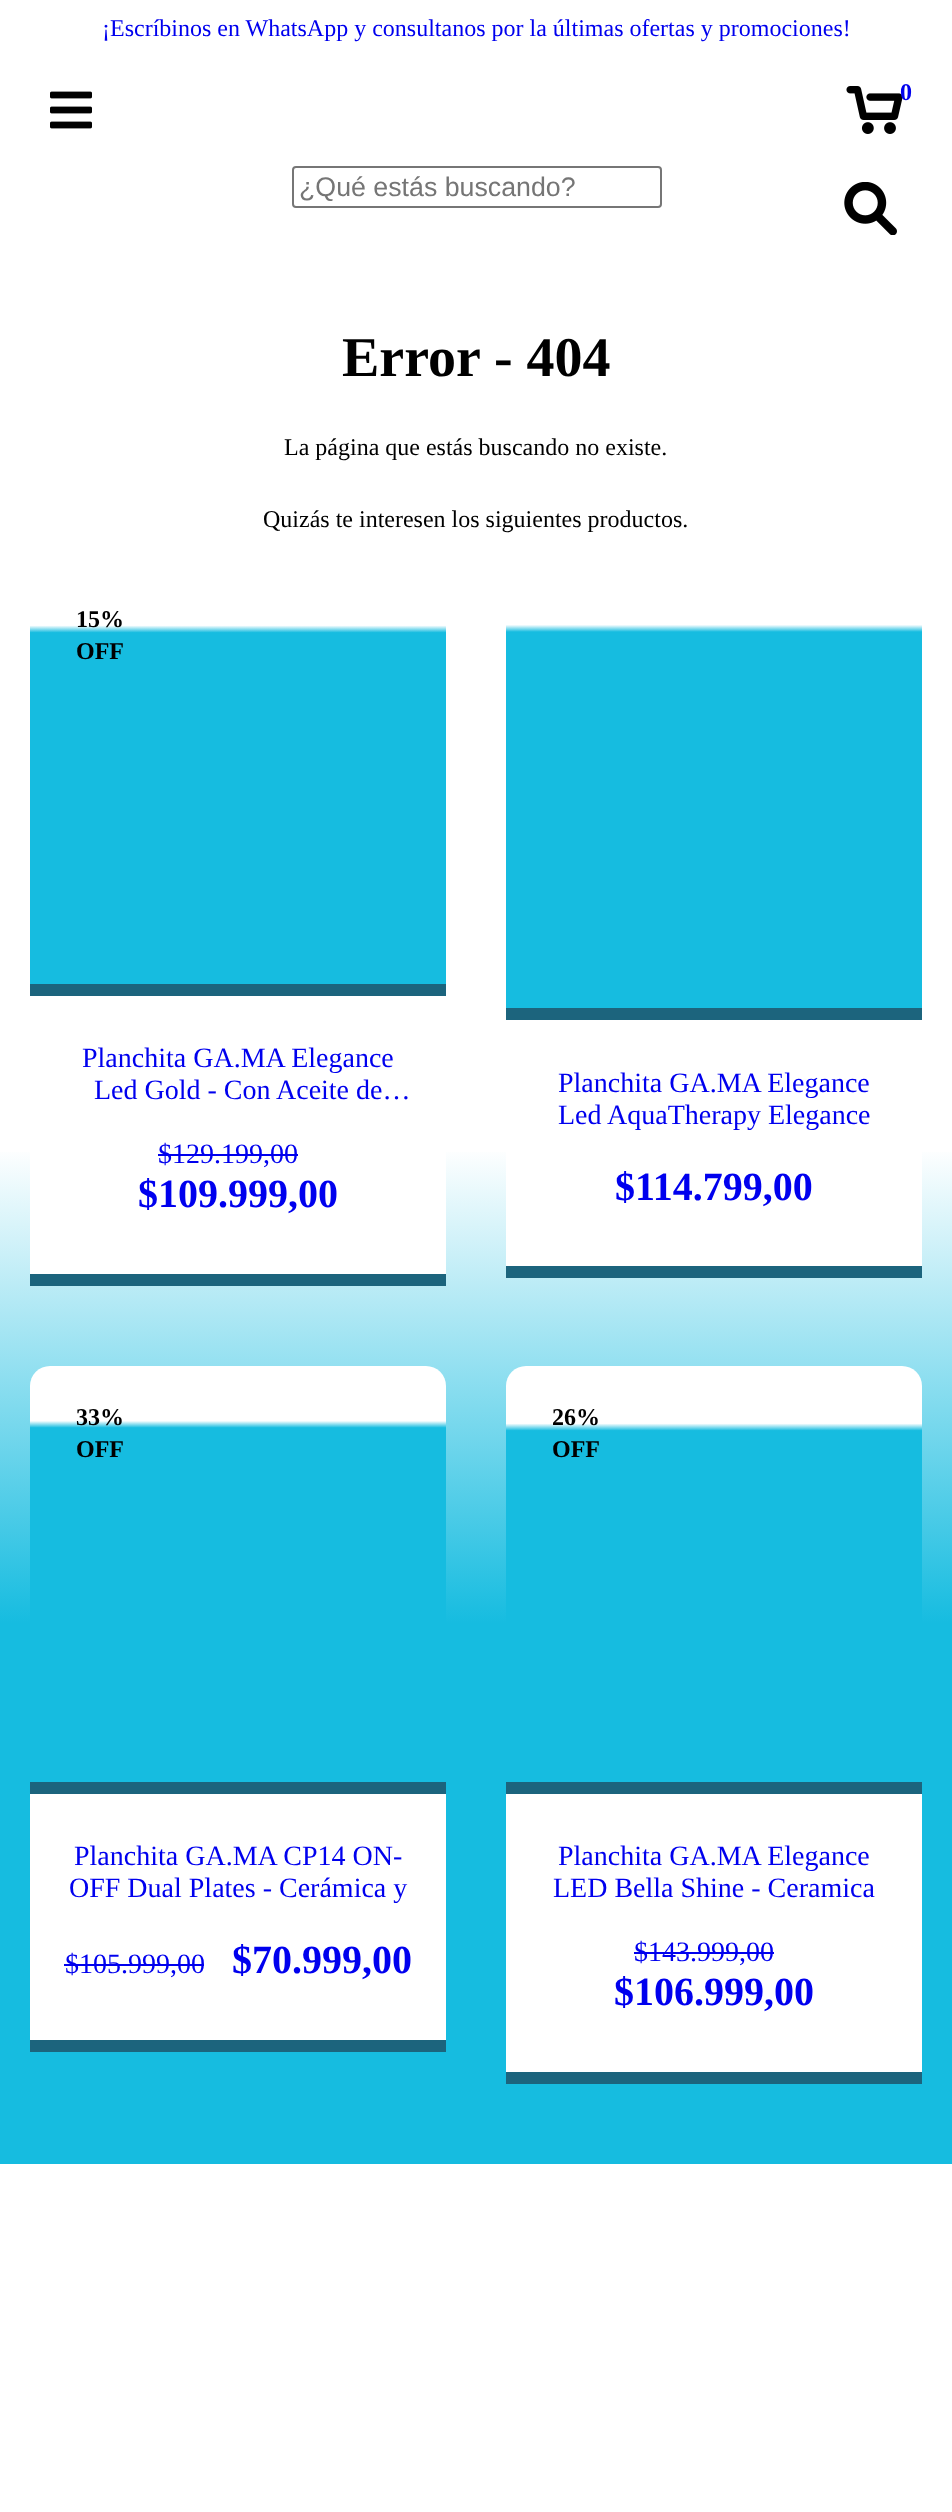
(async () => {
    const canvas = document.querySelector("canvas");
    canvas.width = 952;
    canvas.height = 2512;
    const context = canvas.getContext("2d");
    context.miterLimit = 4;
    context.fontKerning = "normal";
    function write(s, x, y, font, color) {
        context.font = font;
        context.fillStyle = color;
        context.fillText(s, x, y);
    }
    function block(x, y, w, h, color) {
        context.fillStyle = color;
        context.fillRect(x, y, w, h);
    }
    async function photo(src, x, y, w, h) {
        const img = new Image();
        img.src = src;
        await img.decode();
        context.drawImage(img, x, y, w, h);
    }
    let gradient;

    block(0, 0, 952, 2512, "rgb(255, 255, 255)");
    gradient = context.createLinearGradient(476, 0, 476, 2164);
    gradient.addColorStop(0.08, "rgb(255, 255, 255)");
    gradient.addColorStop(0.53, "rgb(255, 255, 255)");
    gradient.addColorStop(0.75, "rgb(22, 188, 224)");
    context.fillStyle = gradient;
    context.fillRect(0, 1152, 952, 1012);
    write("¡Escríbinos en WhatsApp y consultanos por la últimas ofertas y promociones!", 102, 36, "24px Liberation Serif", "rgb(0, 0, 238)");
    await photo("media/1.png", 50, 91, 42, 38);
    await photo("media/2.png", 846, 86, 57, 48);
    write("0", 900, 100, "bold 24px Liberation Serif", "rgb(0, 0, 238)");
    context.beginPath();
    context.roundRect(293, 167, 368, 40, 3);
    context.strokeStyle = "rgb(118, 118, 118)";
    context.lineWidth = 2;
    context.stroke();
    write("¿Qué estás buscando?", 299, 196, "26.75px Liberation Sans", "rgb(117, 117, 117)");
    await photo("media/3.png", 844, 182, 53, 53);
    write("Error - 404", 342, 376, "bold 56px Liberation Serif", "rgb(0, 0, 0)");
    write("La página que estás buscando no existe.", 284, 455, "24px Liberation Serif", "rgb(0, 0, 0)");
    write("Quizás te interesen los siguientes productos.", 263, 527, "24px Liberation Serif", "rgb(0, 0, 0)");
    gradient = context.createLinearGradient(238, 568, 238, 1286);
    gradient.addColorStop(0.08, "rgb(255, 255, 255)");
    gradient.addColorStop(0.09, "rgb(22, 188, 224)");
    context.fillStyle = gradient;
    context.beginPath();
    context.roundRect(30, 568, 416, 718, 20);
    context.fill();
    write("15%", 76, 627, "bold 24px Liberation Serif", "rgb(0, 0, 0)");
    write("OFF", 76, 659, "bold 24px Liberation Serif", "rgb(0, 0, 0)");
    block(30, 996, 416, 278, "rgb(255, 255, 255)");
    block(30, 984, 416, 12, "rgb(28, 100, 125)");
    block(30, 1274, 416, 12, "rgb(28, 100, 125)");
    write("Planchita GA.MA Elegance", 82, 1067, "28px Liberation Serif", "rgb(0, 0, 238)");
    write("Led Gold - Con Aceite de…", 94, 1099, "28px Liberation Serif", "rgb(0, 0, 238)");
    write("$129.199,00", 158, 1163, "28px Liberation Serif", "rgb(0, 0, 238)");
    block(158, 1154, 140, 2, "rgb(0, 0, 238)");
    write("$109.999,00", 138, 1207, "bold 40px Liberation Serif", "rgb(0, 0, 238)");
    gradient = context.createLinearGradient(714, 568, 714, 1278);
    gradient.addColorStop(0.08, "rgb(255, 255, 255)");
    gradient.addColorStop(0.09, "rgb(22, 188, 224)");
    context.fillStyle = gradient;
    context.beginPath();
    context.roundRect(506, 568, 416, 710, 20);
    context.fill();
    block(506, 1020, 416, 246, "rgb(255, 255, 255)");
    block(506, 1008, 416, 12, "rgb(28, 100, 125)");
    block(506, 1266, 416, 12, "rgb(28, 100, 125)");
    write("Planchita GA.MA Elegance", 558, 1092, "28px Liberation Serif", "rgb(0, 0, 238)");
    write("Led AquaTherapy Elegance", 558, 1124, "28px Liberation Serif", "rgb(0, 0, 238)");
    write("$114.799,00", 615, 1200, "bold 40px Liberation Serif", "rgb(0, 0, 238)");
    gradient = context.createLinearGradient(238, 1366, 238, 2052);
    gradient.addColorStop(0.08, "rgb(255, 255, 255)");
    gradient.addColorStop(0.09, "rgb(22, 188, 224)");
    context.fillStyle = gradient;
    context.beginPath();
    context.roundRect(30, 1366, 416, 686, 20);
    context.fill();
    write("33%", 76, 1425, "bold 24px Liberation Serif", "rgb(0, 0, 0)");
    write("OFF", 76, 1457, "bold 24px Liberation Serif", "rgb(0, 0, 0)");
    block(30, 1794, 416, 246, "rgb(255, 255, 255)");
    block(30, 1782, 416, 12, "rgb(28, 100, 125)");
    block(30, 2040, 416, 12, "rgb(28, 100, 125)");
    write("Planchita GA.MA CP14 ON-", 74, 1865, "28px Liberation Serif", "rgb(0, 0, 238)");
    write("OFF Dual Plates - Cerámica y", 69, 1897, "28px Liberation Serif", "rgb(0, 0, 238)");
    write("$105.999,00", 65, 1973, "28px Liberation Serif", "rgb(0, 0, 238)");
    block(64, 1964, 140, 2, "rgb(0, 0, 238)");
    write("$70.999,00", 232, 1973, "bold 40px Liberation Serif", "rgb(0, 0, 238)");
    gradient = context.createLinearGradient(714, 1366, 714, 2084);
    gradient.addColorStop(0.08, "rgb(255, 255, 255)");
    gradient.addColorStop(0.09, "rgb(22, 188, 224)");
    context.fillStyle = gradient;
    context.beginPath();
    context.roundRect(506, 1366, 416, 718, 20);
    context.fill();
    write("26%", 552, 1425, "bold 24px Liberation Serif", "rgb(0, 0, 0)");
    write("OFF", 552, 1457, "bold 24px Liberation Serif", "rgb(0, 0, 0)");
    block(506, 1794, 416, 278, "rgb(255, 255, 255)");
    block(506, 1782, 416, 12, "rgb(28, 100, 125)");
    block(506, 2072, 416, 12, "rgb(28, 100, 125)");
    write("Planchita GA.MA Elegance", 558, 1865, "28px Liberation Serif", "rgb(0, 0, 238)");
    write("LED Bella Shine - Ceramica", 553, 1897, "28px Liberation Serif", "rgb(0, 0, 238)");
    write("$143.999,00", 634, 1961, "28px Liberation Serif", "rgb(0, 0, 238)");
    block(634, 1952, 140, 2, "rgb(0, 0, 238)");
    write("$106.999,00", 614, 2005, "bold 40px Liberation Serif", "rgb(0, 0, 238)");
})();
